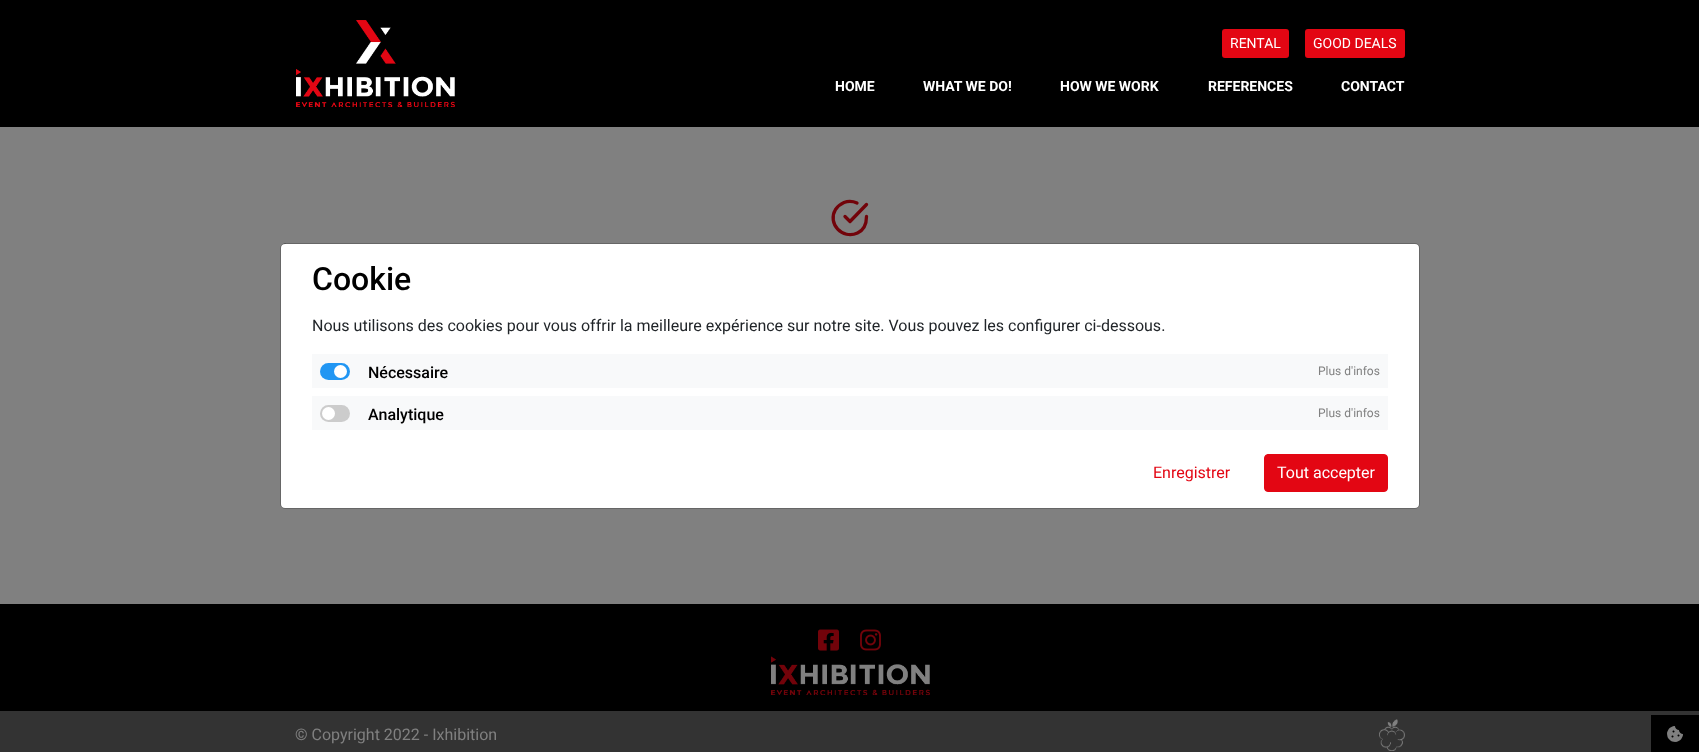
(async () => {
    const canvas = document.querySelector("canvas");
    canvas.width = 1699;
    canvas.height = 752;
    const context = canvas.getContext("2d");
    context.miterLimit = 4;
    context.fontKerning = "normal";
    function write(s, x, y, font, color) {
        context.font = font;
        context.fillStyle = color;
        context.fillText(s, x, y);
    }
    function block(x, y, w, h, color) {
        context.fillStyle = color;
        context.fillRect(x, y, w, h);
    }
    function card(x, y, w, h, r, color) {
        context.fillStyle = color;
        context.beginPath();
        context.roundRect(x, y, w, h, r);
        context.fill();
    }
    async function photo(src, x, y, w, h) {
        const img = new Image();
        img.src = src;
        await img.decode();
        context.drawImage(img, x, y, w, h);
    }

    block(0, 0, 1699, 752, "rgb(128, 128, 128)");
    block(0, 0, 1699, 127, "rgb(0, 0, 0)");
    await photo("media/1.png", 296, 20, 159, 87);
    card(1222, 29, 67, 29, 3, "rgb(227, 6, 19)");
    write("RENTAL", 1230, 48, "14px Roboto", "rgb(255, 255, 255)");
    card(1305, 29, 100, 29, 3, "rgb(227, 6, 19)");
    write("GOOD DEALS", 1313, 48, "14px Roboto", "rgb(255, 255, 255)");
    write("HOME", 835, 91, "bold 14px Roboto", "rgb(255, 255, 255)");
    write("WHAT WE DO!", 923, 91, "bold 14px Roboto", "rgb(255, 255, 255)");
    write("HOW WE WORK", 1060, 91, "bold 14px Roboto", "rgb(255, 255, 255)");
    write("REFERENCES", 1208, 91, "bold 14px Roboto", "rgb(255, 255, 255)");
    write("CONTACT", 1341, 91, "bold 14px Roboto", "rgb(255, 255, 255)");
    context.beginPath();
    context.moveTo(866.5, 216.5);
    context.bezierCurveTo(866.5, 223.5, 864, 230, 857.5, 233);
    context.bezierCurveTo(842.5, 240, 827, 223.5, 835.5, 209.5);
    context.bezierCurveTo(837.5, 206.5, 840.5, 204, 844, 202.5);
    context.bezierCurveTo(848, 201, 852.5, 201, 857, 203);
    context.moveTo(866.5, 204.5);
    context.lineTo(850, 221.5);
    context.lineTo(845, 216.5);
    context.strokeStyle = "rgb(114, 3, 10)";
    context.lineWidth = 3.3;
    context.lineCap = "round";
    context.lineJoin = "round";
    context.stroke();
    block(0, 604, 1699, 107, "rgb(0, 0, 0)");
    await photo("media/2.png", 818, 629, 21, 22);
    await photo("media/3.png", 860, 629, 21, 22);
    await photo("media/4.png", 771, 656, 159, 39);
    block(0, 711, 1699, 41, "rgb(51, 51, 51)");
    write("© Copyright 2022 - Ixhibition", 295, 740, "16px Roboto", "rgb(128, 128, 128)");
    await photo("media/5.png", 1379, 719, 26, 32);
    card(281, 244, 1138, 264, 4, "rgb(255, 255, 255)");
    context.beginPath();
    context.roundRect(280.5, 243.5, 1139, 265, 4.5);
    context.strokeStyle = "rgba(0, 0, 0, 0.2)";
    context.lineWidth = 1;
    context.lineJoin = "miter";
    context.stroke();
    write("Cookie", 312, 290, "500 32px Roboto", "rgb(0, 0, 0)");
    write("Nous utilisons des cookies pour vous offrir la meilleure expérience sur notre site. Vous pouvez les configurer ci-dessous.", 312, 331, "16px Roboto", "rgb(33, 37, 41)");
    block(312, 354, 1076, 34, "rgb(248, 249, 250)");
    card(320, 363, 30, 17, 8.5, "rgb(33, 150, 243)");
    context.fillStyle = "rgb(255, 255, 255)";
    context.beginPath();
    context.arc(340.5, 371.5, 6.5, 0, Math.PI * 2);
    context.fill();
    write("Nécessaire", 368, 378, "500 16px Roboto", "rgb(0, 0, 0)");
    write("Plus d'infos", 1318, 375, "12px Roboto", "rgb(128, 128, 128)");
    block(312, 396, 1076, 34, "rgb(248, 249, 250)");
    card(320, 405, 30, 17, 8.5, "rgb(204, 204, 204)");
    context.fillStyle = "rgb(255, 255, 255)";
    context.beginPath();
    context.arc(328.5, 413.5, 6.5, 0, Math.PI * 2);
    context.fill();
    write("Analytique", 368, 420, "500 16px Roboto", "rgb(0, 0, 0)");
    write("Plus d'infos", 1318, 417, "12px Roboto", "rgb(128, 128, 128)");
    write("Enregistrer", 1153, 478, "16px Roboto", "rgb(227, 6, 19)");
    context.beginPath();
    context.roundRect(1264.5, 454.5, 123, 37, 3.5);
    context.fill();
    context.strokeStyle = "rgb(227, 6, 19)";
    context.stroke();
    write("Tout accepter", 1277, 478, "16px Roboto", "rgb(255, 255, 255)");
    block(1651, 715, 48, 37, "rgb(0, 0, 0)");
    await photo("media/6.png", 1667, 726, 16, 16);
})();
